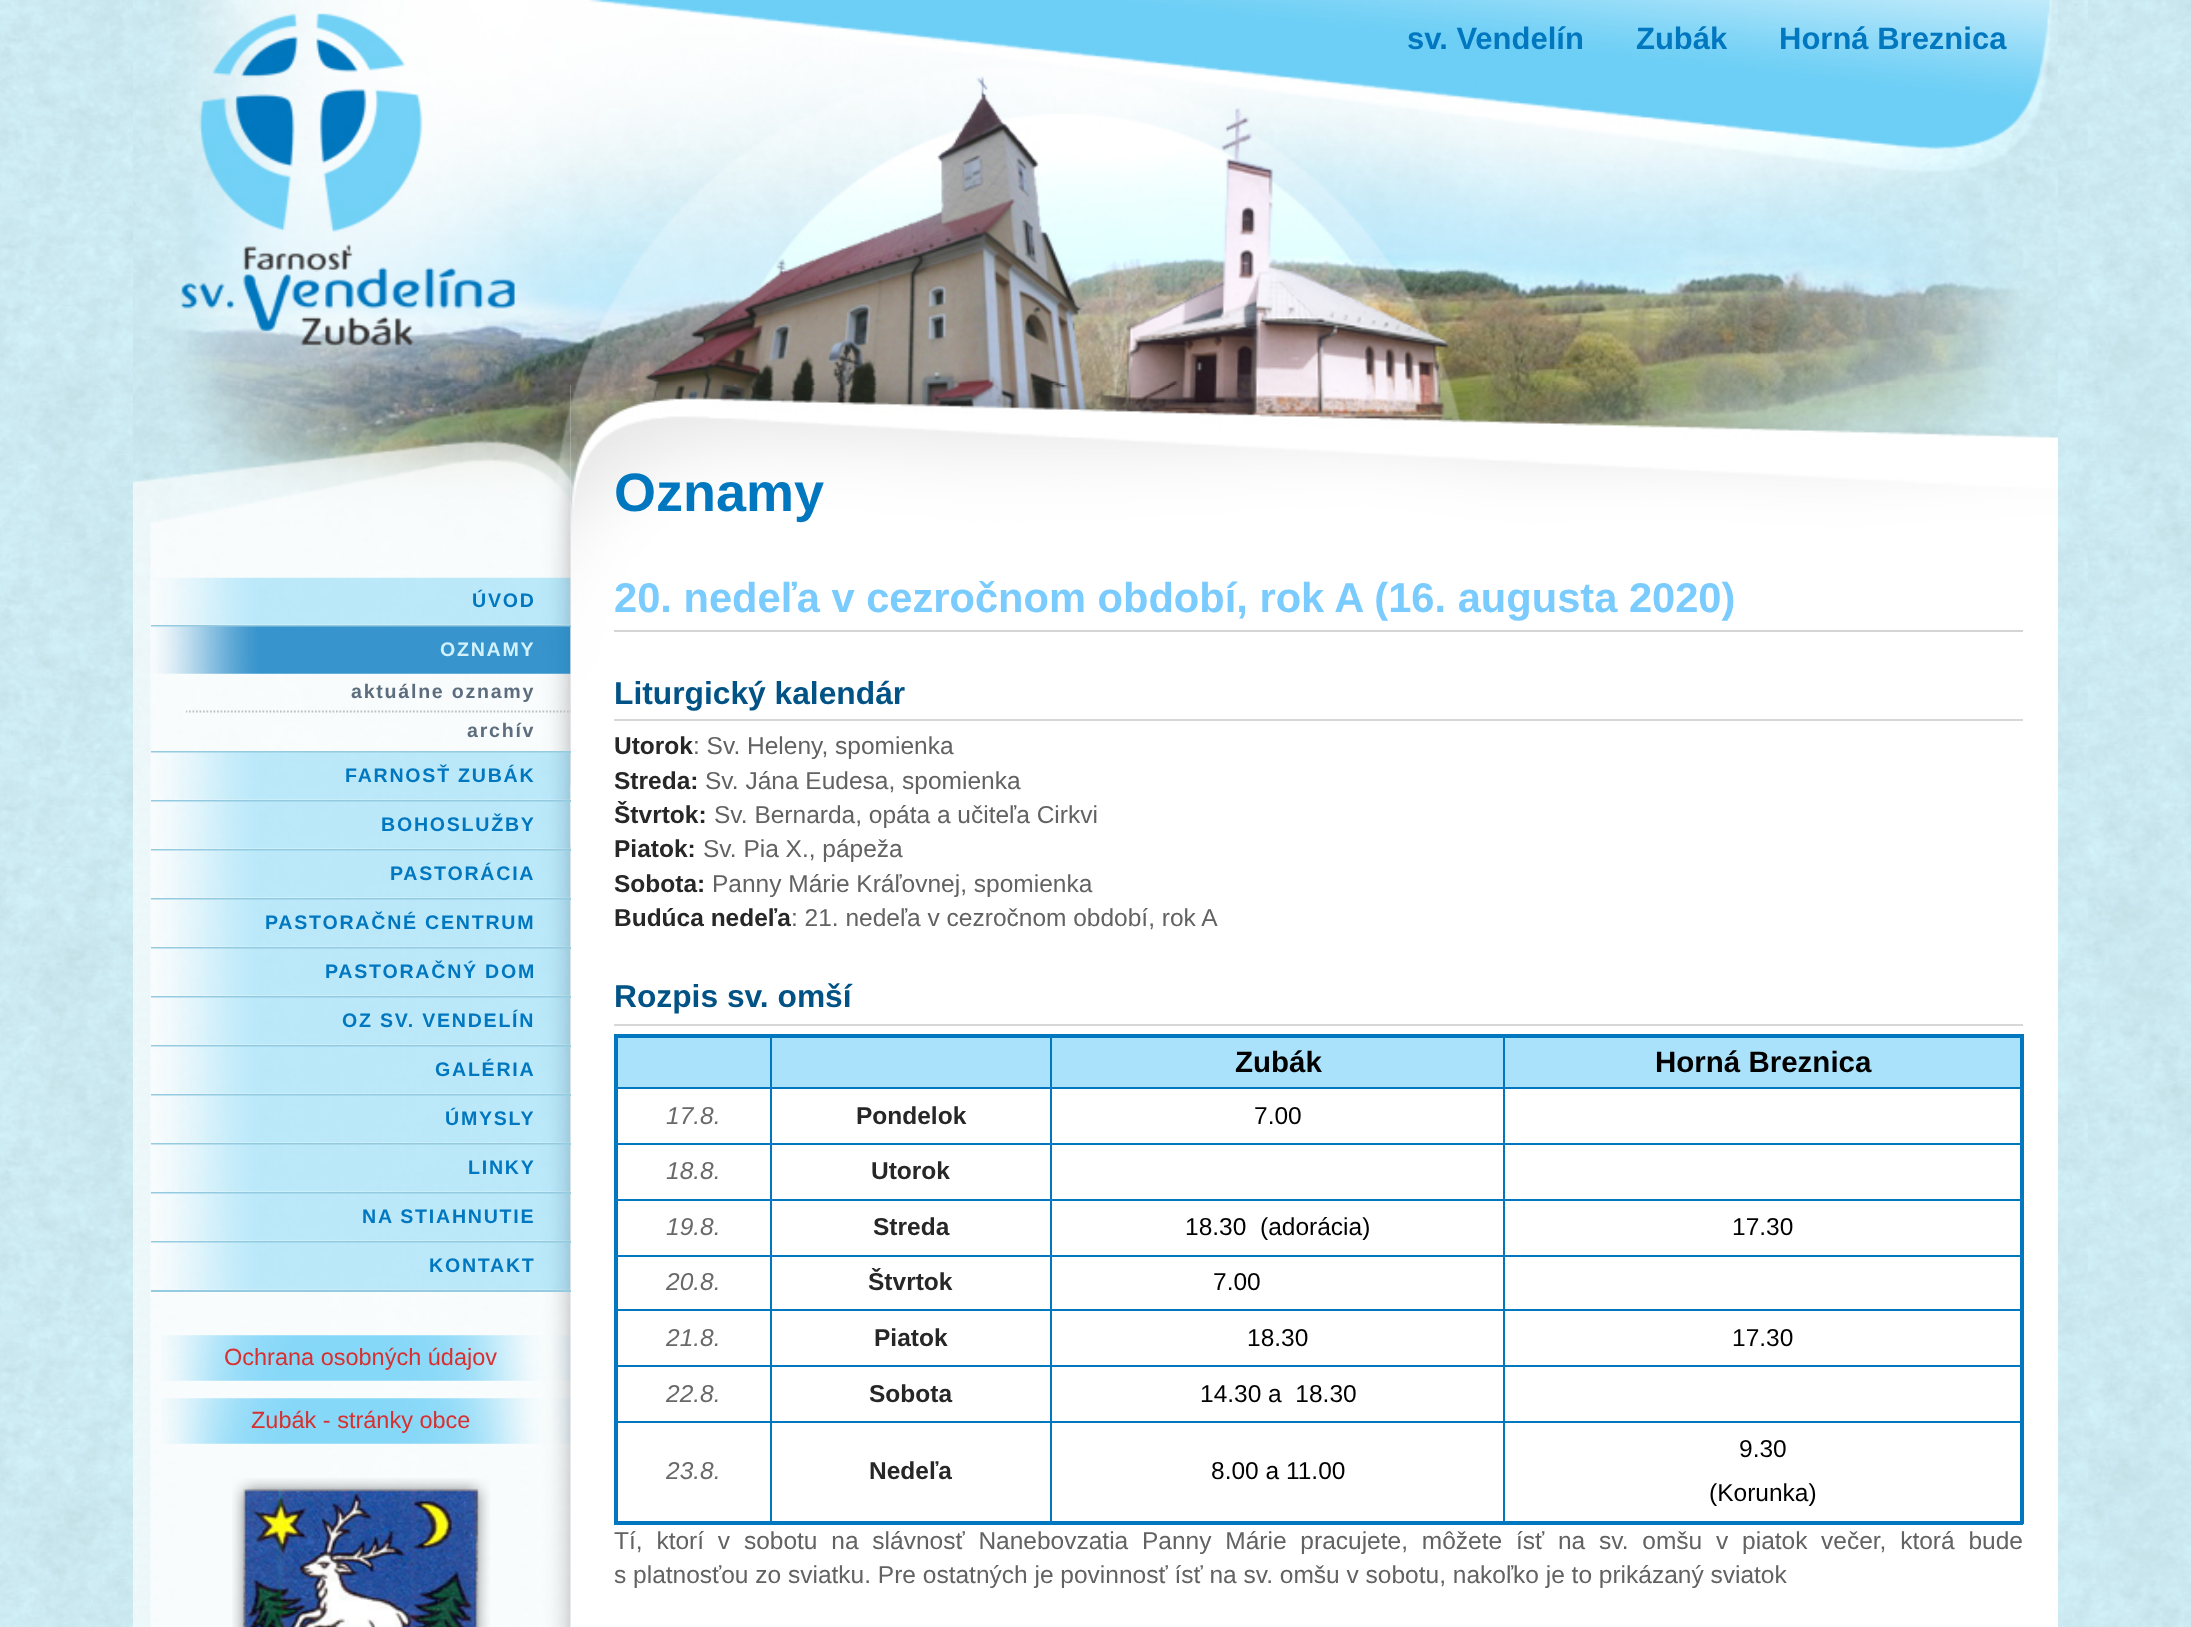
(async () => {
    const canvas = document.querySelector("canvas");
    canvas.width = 2191;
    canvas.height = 1627;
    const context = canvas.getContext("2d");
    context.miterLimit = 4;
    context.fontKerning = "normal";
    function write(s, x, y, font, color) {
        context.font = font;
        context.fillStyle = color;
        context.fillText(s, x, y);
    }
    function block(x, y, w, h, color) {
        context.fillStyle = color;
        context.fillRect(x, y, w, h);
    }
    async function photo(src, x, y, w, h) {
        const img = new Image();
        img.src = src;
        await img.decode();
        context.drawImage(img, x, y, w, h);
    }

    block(0, 0, 2191, 1627, "rgb(255, 255, 255)");
    await photo("media/1.png", 0, 0, 2191, 1627);
    await photo("media/2.png", 133, 385, 1925, 1242);
    await photo("media/3.png", 133, 0, 1925, 385);
    write("sv. Vendelín", 1407, 49, "bold 31px Liberation Sans", "rgb(1, 119, 191)");
    write("Zubák", 1636, 49, "bold 31px Liberation Sans", "rgb(1, 119, 191)");
    write("Horná Breznica", 1779, 49, "bold 31px Liberation Sans", "rgb(1, 119, 191)");
    await photo("media/15.png", 570, 385, 1488, 460);
    await photo("media/4.png", 133, 385, 438, 401);
    block(151, 625, 420, 2, "rgb(149, 203, 225)");
    await photo("media/5.png", 150, 577, 421, 48);
    context.letterSpacing = "1.75px";
    write("ÚVOD", 472, 607, "bold 19.6px Liberation Sans", "rgb(1, 119, 191)");
    block(151, 751, 420, 2, "rgb(149, 203, 225)");
    await photo("media/6.png", 151, 626, 420, 48);
    write("OZNAMY", 440, 656, "bold 19.6px Liberation Sans", "rgb(209, 242, 252)");
    write("aktuálne oznamy", 351, 698, "bold 19.6px Liberation Sans", "rgb(92, 109, 125)");
    context.save();
    context.beginPath();
    context.rect(186, 674, 385, 77);
    context.clip();
    context.beginPath();
    context.moveTo(185.5, 711.5);
    context.lineTo(588, 711.5);
    context.strokeStyle = "rgb(192, 192, 192)";
    context.lineWidth = 1.8;
    context.setLineDash([1.75, 1.75]);
    context.stroke();
    context.restore();
    write("archív", 467, 737, "bold 19.6px Liberation Sans", "rgb(92, 109, 125)");
    block(151, 800, 420, 2, "rgb(149, 203, 225)");
    await photo("media/7.png", 151, 752, 420, 48);
    write("FARNOSŤ ZUBÁK", 345, 782, "bold 19.6px Liberation Sans", "rgb(1, 119, 191)");
    block(151, 849, 420, 2, "rgb(149, 203, 225)");
    await photo("media/8.png", 151, 801, 420, 48);
    write("BOHOSLUŽBY", 381, 831, "bold 19.6px Liberation Sans", "rgb(1, 119, 191)");
    block(151, 898, 420, 2, "rgb(149, 203, 225)");
    await photo("media/9.png", 151, 850, 420, 48);
    write("PASTORÁCIA", 390, 880, "bold 19.6px Liberation Sans", "rgb(1, 119, 191)");
    block(151, 947, 420, 2, "rgb(149, 203, 225)");
    await photo("media/10.png", 151, 899, 420, 48);
    write("PASTORAČNÉ CENTRUM", 265, 929, "bold 19.6px Liberation Sans", "rgb(1, 119, 191)");
    block(151, 996, 420, 2, "rgb(149, 203, 225)");
    await photo("media/11.png", 151, 948, 420, 48);
    write("PASTORAČNÝ DOM", 325, 978, "bold 19.6px Liberation Sans", "rgb(1, 119, 191)");
    block(151, 1045, 420, 2, "rgb(149, 203, 225)");
    await photo("media/9.png", 151, 997, 420, 48);
    write("OZ SV. VENDELÍN", 342, 1027, "bold 19.6px Liberation Sans", "rgb(1, 119, 191)");
    block(151, 1094, 420, 2, "rgb(149, 203, 225)");
    await photo("media/10.png", 151, 1046, 420, 48);
    write("GALÉRIA", 435, 1076, "bold 19.6px Liberation Sans", "rgb(1, 119, 191)");
    block(151, 1143, 420, 2, "rgb(149, 203, 225)");
    await photo("media/11.png", 151, 1095, 420, 48);
    write("ÚMYSLY", 445, 1125, "bold 19.6px Liberation Sans", "rgb(1, 119, 191)");
    block(151, 1192, 420, 2, "rgb(149, 203, 225)");
    await photo("media/9.png", 151, 1144, 420, 48);
    write("LINKY", 468, 1174, "bold 19.6px Liberation Sans", "rgb(1, 119, 191)");
    block(151, 1241, 420, 2, "rgb(149, 203, 225)");
    await photo("media/10.png", 151, 1193, 420, 48);
    write("NA STIAHNUTIE", 362, 1223, "bold 19.6px Liberation Sans", "rgb(1, 119, 191)");
    block(151, 1290, 420, 2, "rgb(149, 203, 225)");
    await photo("media/11.png", 151, 1242, 420, 48);
    write("KONTAKT", 429, 1272, "bold 19.6px Liberation Sans", "rgb(1, 119, 191)");
    await photo("media/12.png", 161, 1335, 410, 46);
    context.letterSpacing = "0px";
    write("Ochrana osobných údajov", 224, 1365, "23.5px Liberation Sans", "rgb(215, 48, 48)");
    await photo("media/13.png", 161, 1398, 410, 46);
    write("Zubák - stránky obce", 251, 1428, "23.5px Liberation Sans", "rgb(215, 48, 48)");
    await photo("media/14.png", 232, 1478, 258, 149);
    write("Oznamy", 614, 511, "bold 54px Liberation Sans", "rgb(1, 119, 191)");
    block(614, 630, 1409, 2, "rgb(213, 213, 213)");
    write("20. nedeľa v cezročnom období, rok A (16. augusta 2020)", 614, 612, "bold 41.65px Liberation Sans", "rgb(122, 203, 254)");
    block(614, 719, 1409, 2, "rgb(215, 215, 215)");
    write("Liturgický kalendár", 614, 704, "bold 31.75px Liberation Sans", "rgb(1, 82, 133)");
    write("Utorok", 614, 754, "bold 24.5px Liberation Sans", "rgb(39, 39, 39)");
    write(": Sv. Heleny, spomienka", 693, 754, "24.5px Liberation Sans", "rgb(98, 98, 98)");
    write("Streda:", 614, 789, "bold 24.5px Liberation Sans", "rgb(39, 39, 39)");
    write("Sv. Jána Eudesa, spomienka", 705, 789, "24.5px Liberation Sans", "rgb(98, 98, 98)");
    write("Štvrtok:", 614, 823, "bold 24.5px Liberation Sans", "rgb(39, 39, 39)");
    write("Sv. Bernarda, opáta a učiteľa Cirkvi", 714, 823, "24.5px Liberation Sans", "rgb(98, 98, 98)");
    write("Piatok:", 614, 857, "bold 24.5px Liberation Sans", "rgb(39, 39, 39)");
    write("Sv. Pia X., pápeža", 703, 857, "24.5px Liberation Sans", "rgb(98, 98, 98)");
    write("Sobota:", 614, 892, "bold 24.5px Liberation Sans", "rgb(39, 39, 39)");
    write("Panny Márie Kráľovnej, spomienka", 712, 892, "24.5px Liberation Sans", "rgb(98, 98, 98)");
    write("Budúca nedeľa", 614, 926, "bold 24.5px Liberation Sans", "rgb(39, 39, 39)");
    write(": 21. nedeľa v cezročnom období, rok A", 791, 926, "24.5px Liberation Sans", "rgb(98, 98, 98)");
    block(614, 1024, 1409, 2, "rgb(215, 215, 215)");
    write("Rozpis sv. omší", 614, 1007, "bold 31.75px Liberation Sans", "rgb(1, 82, 133)");
    block(1503, 1087, 520, 2, "rgb(1, 119, 191)");
    block(1503, 1143, 520, 2, "rgb(1, 119, 191)");
    block(1503, 1199, 520, 2, "rgb(1, 119, 191)");
    block(1503, 1255, 520, 2, "rgb(1, 119, 191)");
    block(1503, 1309, 520, 2, "rgb(1, 119, 191)");
    block(1503, 1365, 520, 2, "rgb(1, 119, 191)");
    block(1503, 1421, 520, 2, "rgb(1, 119, 191)");
    block(1503, 1421, 2, 102, "rgb(1, 119, 191)");
    block(1050, 1421, 455, 2, "rgb(1, 119, 191)");
    block(1503, 1365, 2, 58, "rgb(1, 119, 191)");
    block(1050, 1365, 455, 2, "rgb(1, 119, 191)");
    block(1503, 1309, 2, 58, "rgb(1, 119, 191)");
    block(1050, 1309, 455, 2, "rgb(1, 119, 191)");
    block(1503, 1255, 2, 56, "rgb(1, 119, 191)");
    block(1050, 1255, 455, 2, "rgb(1, 119, 191)");
    block(1503, 1199, 2, 58, "rgb(1, 119, 191)");
    block(1050, 1199, 455, 2, "rgb(1, 119, 191)");
    block(1503, 1143, 2, 58, "rgb(1, 119, 191)");
    block(1050, 1143, 455, 2, "rgb(1, 119, 191)");
    block(1503, 1087, 2, 58, "rgb(1, 119, 191)");
    block(1050, 1087, 455, 2, "rgb(1, 119, 191)");
    block(1050, 1421, 2, 102, "rgb(1, 119, 191)");
    block(770, 1421, 282, 2, "rgb(1, 119, 191)");
    block(1050, 1365, 2, 58, "rgb(1, 119, 191)");
    block(770, 1365, 282, 2, "rgb(1, 119, 191)");
    block(1050, 1309, 2, 58, "rgb(1, 119, 191)");
    block(770, 1309, 282, 2, "rgb(1, 119, 191)");
    block(1050, 1255, 2, 56, "rgb(1, 119, 191)");
    block(770, 1255, 282, 2, "rgb(1, 119, 191)");
    block(1050, 1199, 2, 58, "rgb(1, 119, 191)");
    block(770, 1199, 282, 2, "rgb(1, 119, 191)");
    block(1050, 1143, 2, 58, "rgb(1, 119, 191)");
    block(770, 1143, 282, 2, "rgb(1, 119, 191)");
    block(1050, 1087, 2, 58, "rgb(1, 119, 191)");
    block(770, 1087, 282, 2, "rgb(1, 119, 191)");
    block(770, 1421, 2, 102, "rgb(1, 119, 191)");
    block(616, 1421, 156, 2, "rgb(1, 119, 191)");
    block(770, 1365, 2, 58, "rgb(1, 119, 191)");
    block(616, 1365, 156, 2, "rgb(1, 119, 191)");
    block(770, 1309, 2, 58, "rgb(1, 119, 191)");
    block(616, 1309, 156, 2, "rgb(1, 119, 191)");
    block(770, 1255, 2, 56, "rgb(1, 119, 191)");
    block(616, 1255, 156, 2, "rgb(1, 119, 191)");
    block(770, 1199, 2, 58, "rgb(1, 119, 191)");
    block(616, 1199, 156, 2, "rgb(1, 119, 191)");
    block(770, 1143, 2, 58, "rgb(1, 119, 191)");
    block(616, 1143, 156, 2, "rgb(1, 119, 191)");
    block(770, 1087, 2, 58, "rgb(1, 119, 191)");
    block(616, 1087, 156, 2, "rgb(1, 119, 191)");
    block(770, 1034, 2, 55, "rgb(1, 119, 191)");
    block(1050, 1034, 2, 55, "rgb(1, 119, 191)");
    block(1503, 1034, 2, 55, "rgb(1, 119, 191)");
    block(614, 1034, 1409, 4, "rgb(1, 119, 191)");
    block(2020, 1034, 4, 490, "rgb(1, 119, 191)");
    block(614, 1521, 1409, 4, "rgb(1, 119, 191)");
    block(614, 1034, 4, 490, "rgb(1, 119, 191)");
    block(618, 1038, 152, 49, "rgb(169, 226, 250)");
    block(772, 1038, 278, 49, "rgb(169, 226, 250)");
    block(1052, 1038, 451, 49, "rgb(169, 226, 250)");
    write("Zubák", 1235, 1072, "bold 29.5px Liberation Sans", "rgb(0, 0, 0)");
    block(1505, 1038, 515, 49, "rgb(169, 226, 250)");
    write("Horná Breznica", 1655, 1072, "bold 29.5px Liberation Sans", "rgb(0, 0, 0)");
    write("17.8.", 666, 1124, "italic 24.5px Liberation Sans", "rgb(105, 105, 105)");
    write("Pondelok", 856, 1124, "bold 24.5px Liberation Sans", "rgb(39, 39, 39)");
    write("7.00", 1254, 1124, "24.5px Liberation Sans", "rgb(0, 0, 0)");
    write("18.8.", 666, 1179, "italic 24.5px Liberation Sans", "rgb(105, 105, 105)");
    write("Utorok", 871, 1179, "bold 24.5px Liberation Sans", "rgb(39, 39, 39)");
    write("19.8.", 666, 1235, "italic 24.5px Liberation Sans", "rgb(105, 105, 105)");
    write("Streda", 873, 1235, "bold 24.5px Liberation Sans", "rgb(39, 39, 39)");
    write("18.30", 1185, 1235, "24.5px Liberation Sans", "rgb(0, 0, 0)");
    write("(adorácia)", 1260, 1235, "24.5px Liberation Sans", "rgb(0, 0, 0)");
    write("17.30", 1732, 1235, "24.5px Liberation Sans", "rgb(0, 0, 0)");
    write("20.8.", 666, 1290, "italic 24.5px Liberation Sans", "rgb(105, 105, 105)");
    write("Štvrtok", 868, 1290, "bold 24.5px Liberation Sans", "rgb(39, 39, 39)");
    write("7.00", 1213, 1290, "24.5px Liberation Sans", "rgb(0, 0, 0)");
    write("21.8.", 666, 1346, "italic 24.5px Liberation Sans", "rgb(105, 105, 105)");
    write("Piatok", 874, 1346, "bold 24.5px Liberation Sans", "rgb(39, 39, 39)");
    write("18.30", 1247, 1346, "24.5px Liberation Sans", "rgb(0, 0, 0)");
    write("17.30", 1732, 1346, "24.5px Liberation Sans", "rgb(0, 0, 0)");
    write("22.8.", 666, 1402, "italic 24.5px Liberation Sans", "rgb(105, 105, 105)");
    write("Sobota", 869, 1402, "bold 24.5px Liberation Sans", "rgb(39, 39, 39)");
    write("14.30 a  18.30", 1200, 1402, "24.5px Liberation Sans", "rgb(0, 0, 0)");
    write("23.8.", 666, 1479, "italic 24.5px Liberation Sans", "rgb(105, 105, 105)");
    write("Nedeľa", 869, 1479, "bold 24.5px Liberation Sans", "rgb(39, 39, 39)");
    write("8.00 a 11.00", 1211, 1479, "24.5px Liberation Sans", "rgb(0, 0, 0)");
    write("9.30", 1739, 1457, "24.5px Liberation Sans", "rgb(0, 0, 0)");
    write("(Korunka)", 1709, 1501, "24.5px Liberation Sans", "rgb(0, 0, 0)");
    context.wordSpacing = "7px";
    write("Tí, ktorí v sobotu na slávnosť Nanebovzatia Panny Márie pracujete, môžete ísť na sv. omšu v piatok", 614, 1549, "24.5px Liberation Sans", "rgb(98, 98, 98)");
    write("večer, ktorá bude", 1821, 1549, "24.5px Liberation Sans", "rgb(98, 98, 98)");
    context.wordSpacing = "0px";
    write("s platnosťou zo sviatku. Pre ostatných je povinnosť ísť na sv. omšu v sobotu, nakoľko je to prikázaný sviatok", 614, 1583, "24.5px Liberation Sans", "rgb(98, 98, 98)");
})();
